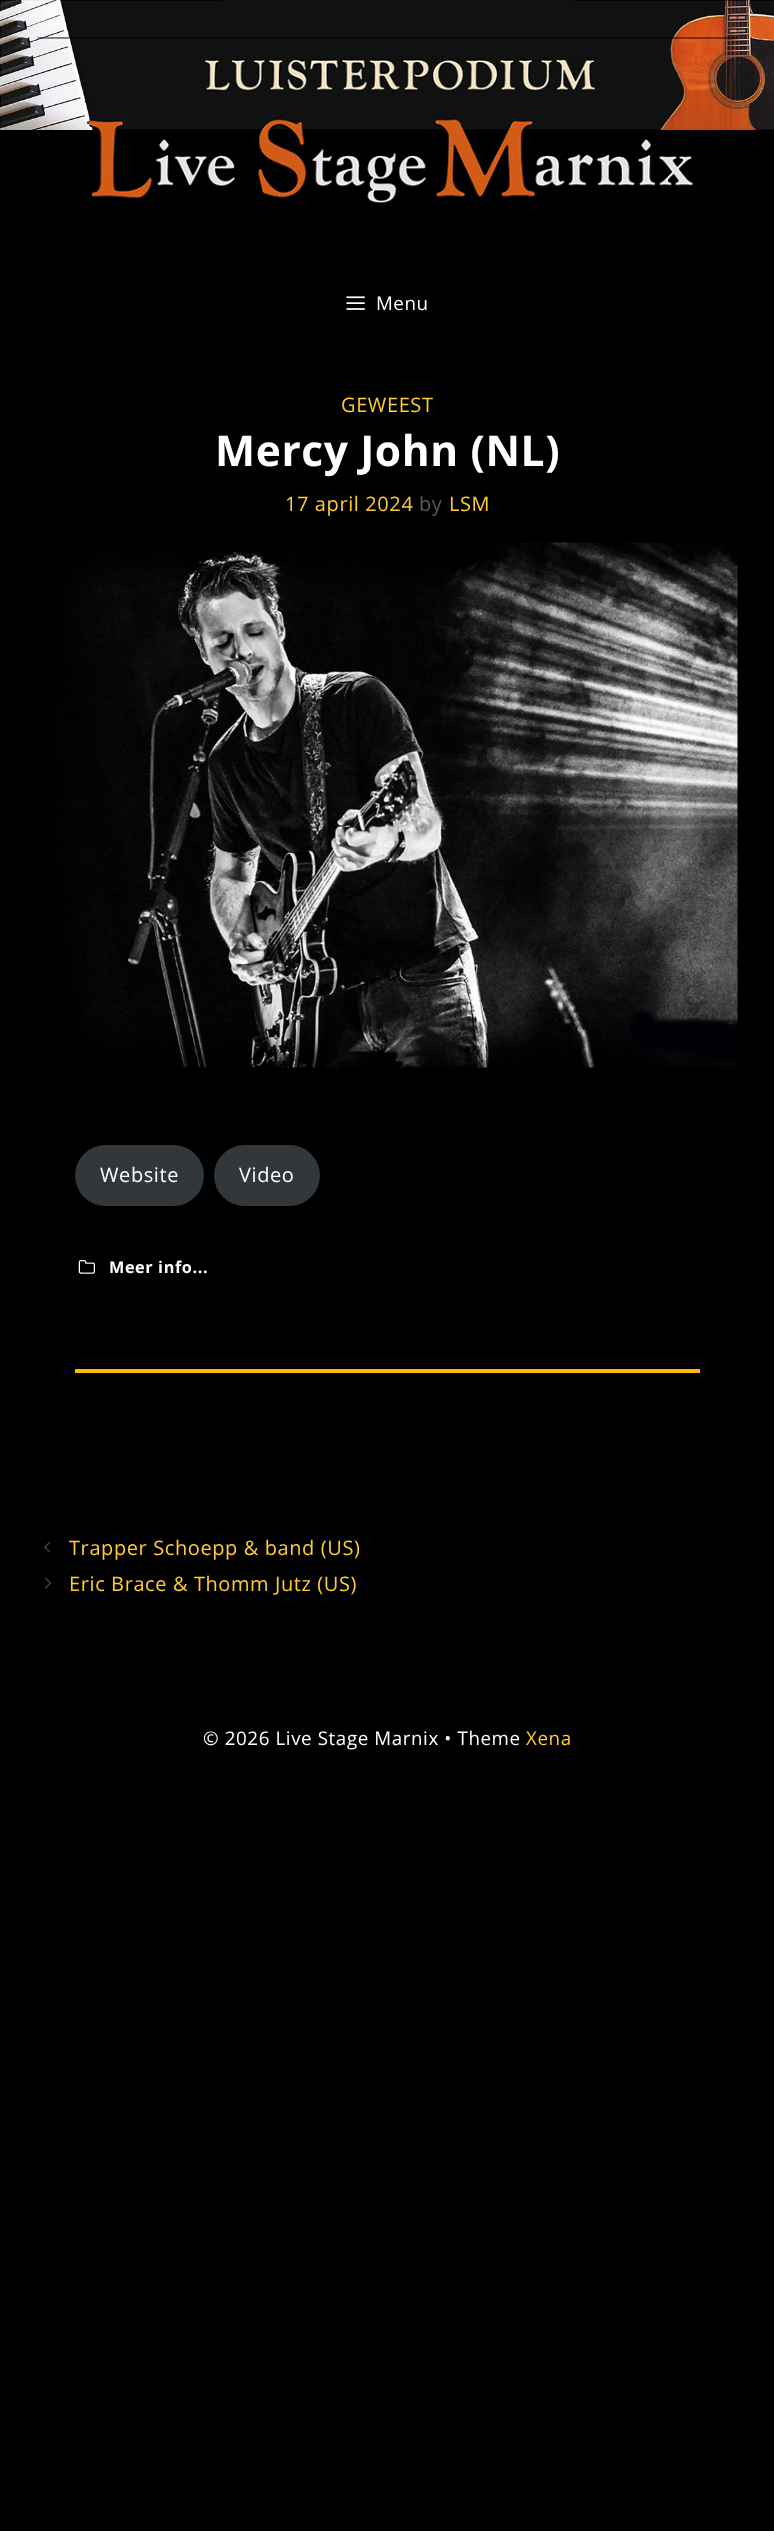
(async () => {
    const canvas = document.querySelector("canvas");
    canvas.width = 774;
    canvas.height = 2531;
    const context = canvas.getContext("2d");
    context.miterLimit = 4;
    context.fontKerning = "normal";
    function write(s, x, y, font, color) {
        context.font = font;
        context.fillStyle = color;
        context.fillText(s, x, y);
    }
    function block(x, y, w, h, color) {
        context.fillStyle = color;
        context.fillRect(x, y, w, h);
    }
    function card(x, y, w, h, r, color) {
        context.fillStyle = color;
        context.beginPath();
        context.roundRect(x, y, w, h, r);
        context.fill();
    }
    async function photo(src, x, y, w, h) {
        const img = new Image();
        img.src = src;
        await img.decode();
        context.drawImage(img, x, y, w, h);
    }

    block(0, 0, 774, 2531, "rgb(0, 0, 0)");
    await photo("media/1.png", 0, 0, 774, 130);
    await photo("media/2.png", 37, 37, 701, 166);
    await photo("media/3.png", 346, 296, 19, 14);
    context.letterSpacing = "0.5px";
    write("Menu", 376, 310, "18.75px Open Sans", "rgb(255, 255, 255)");
    context.letterSpacing = "0.6px";
    write("GEWEEST", 341, 412, "20px Open Sans", "rgb(255, 204, 51)");
    write("Mercy John (NL)", 215, 466, "bold 42.5px Open Sans", "rgb(255, 255, 255)");
    write("17 april 2024", 285, 511, "20px Open Sans", "rgb(255, 204, 51)");
    write("by", 419, 511, "20px Open Sans", "rgb(89, 89, 89)");
    write("LSM", 449, 511, "20px Open Sans", "rgb(255, 204, 51)");
    await photo("media/4.png", 54, 542, 684, 526);
    card(75, 1145, 129, 61, 30.5, "rgb(50, 55, 60)");
    write("Website", 100, 1182, "20px Open Sans", "rgb(255, 255, 255)");
    card(214, 1145, 106, 61, 30.5, "rgb(50, 55, 60)");
    write("Video", 239, 1182, "20px Open Sans", "rgb(255, 255, 255)");
    await photo("media/5.png", 78, 1260, 17, 14);
    write("Meer info...", 109, 1273, "bold 16.25px Open Sans", "rgb(255, 255, 255)");
    block(75, 1369, 625, 4, "rgb(252, 185, 0)");
    await photo("media/6.png", 44, 1541, 7, 12);
    write("Trapper Schoepp & band (US)", 69, 1555, "20px Open Sans", "rgb(255, 204, 51)");
    await photo("media/7.png", 45, 1577, 7, 12);
    write("Eric Brace & Thomm Jutz (US)", 69, 1591, "20px Open Sans", "rgb(255, 204, 51)");
    write("© 2026 Live Stage Marnix • Theme", 203, 1745, "18.75px Open Sans", "rgb(255, 255, 255)");
    write("Xena", 526, 1745, "18.75px Open Sans", "rgb(255, 204, 51)");
})();
